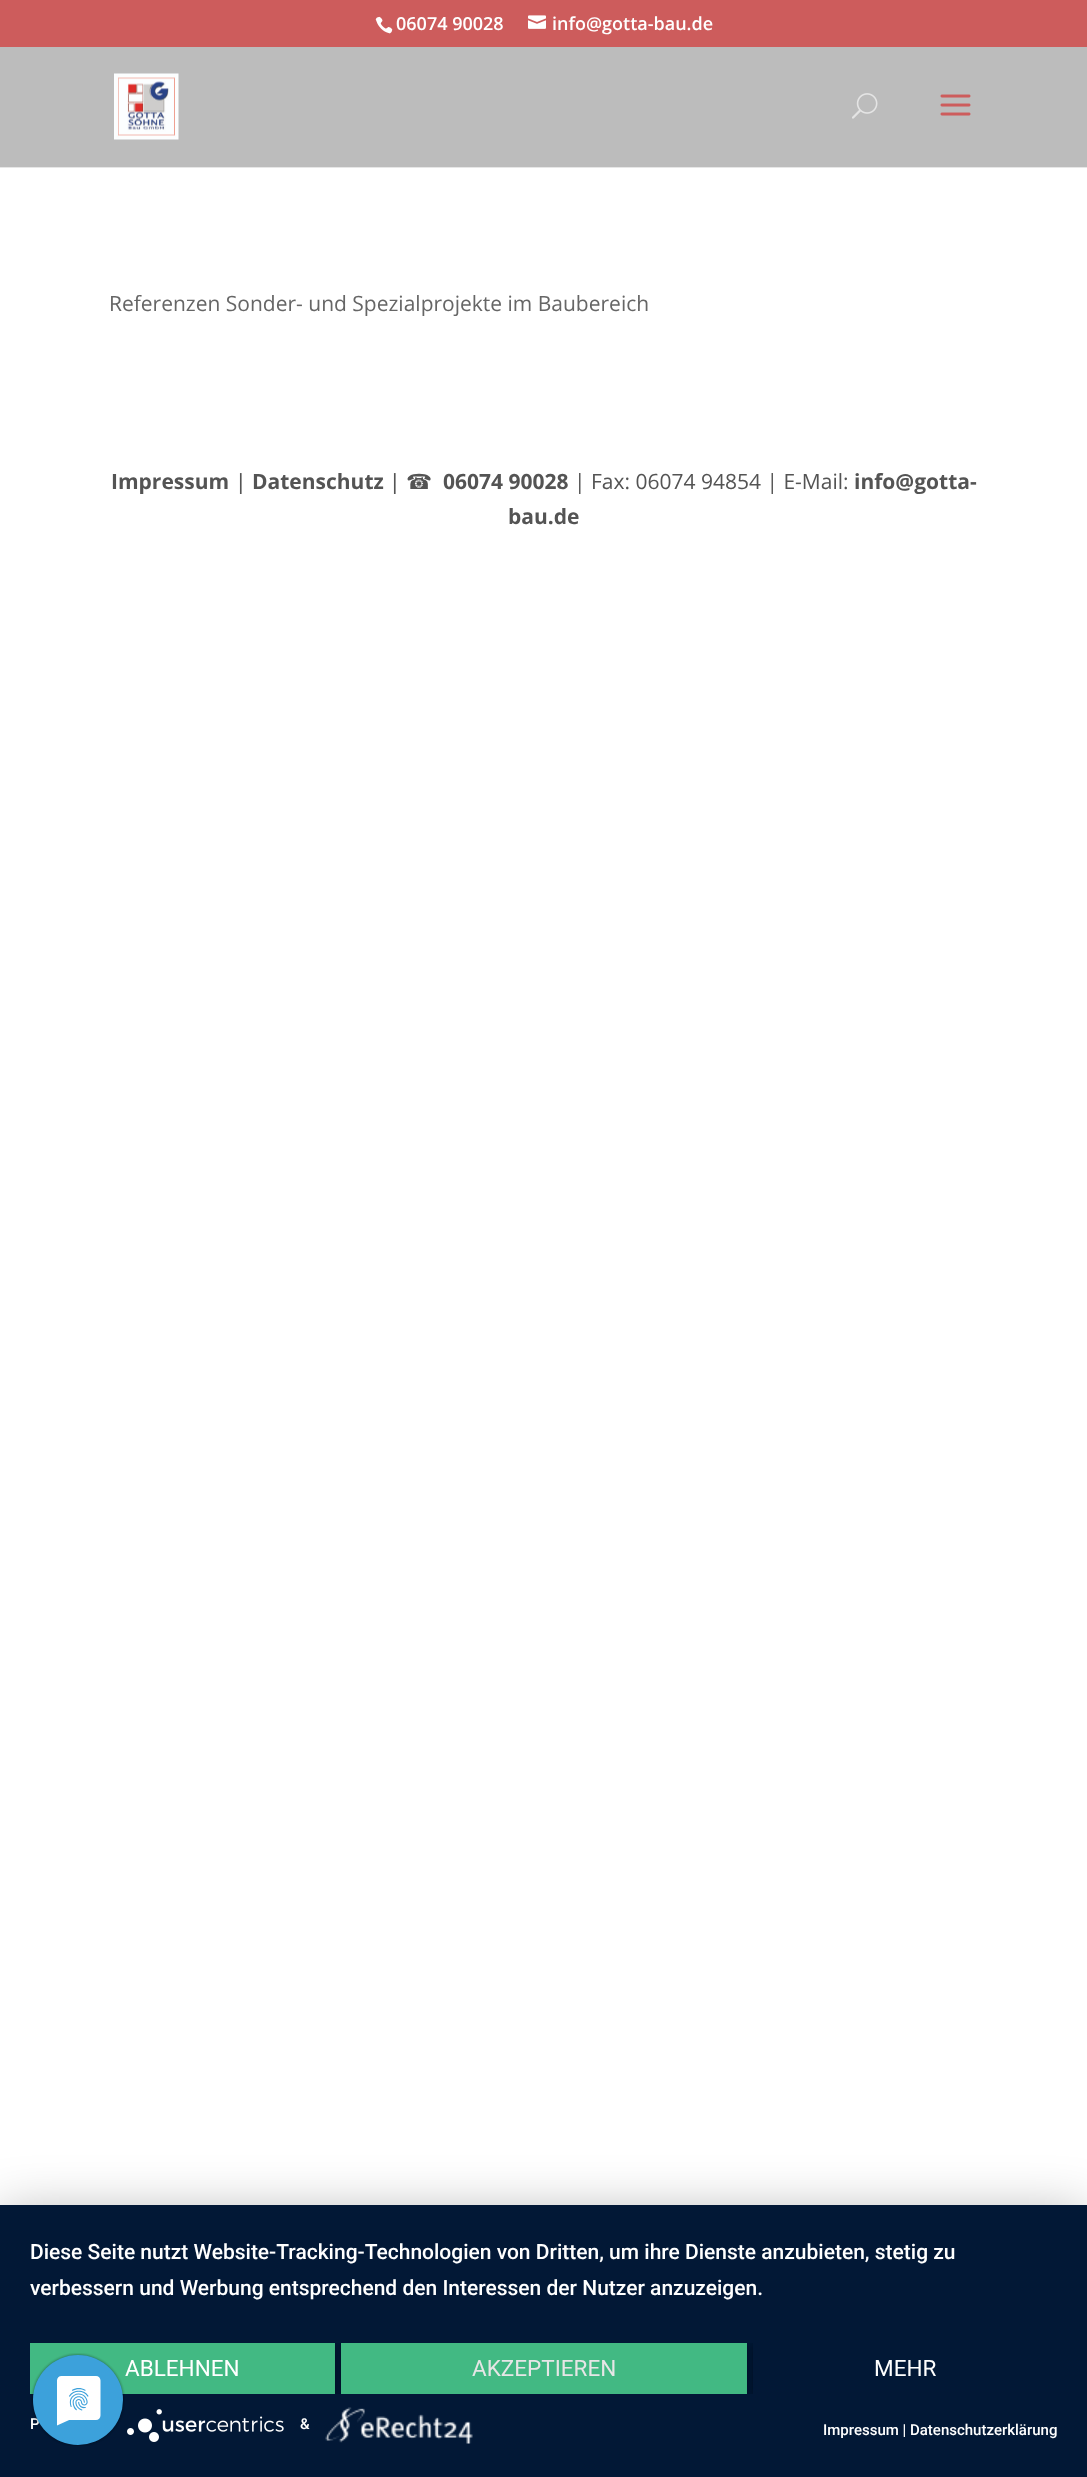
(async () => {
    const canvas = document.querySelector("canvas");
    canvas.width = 1087;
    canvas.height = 2477;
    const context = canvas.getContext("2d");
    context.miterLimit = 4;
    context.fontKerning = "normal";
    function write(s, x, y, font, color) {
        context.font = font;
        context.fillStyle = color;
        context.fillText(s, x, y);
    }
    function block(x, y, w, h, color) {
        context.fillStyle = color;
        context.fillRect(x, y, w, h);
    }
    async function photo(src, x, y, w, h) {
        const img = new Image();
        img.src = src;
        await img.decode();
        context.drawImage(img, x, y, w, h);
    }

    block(0, 0, 1087, 2477, "rgb(255, 255, 255)");
    block(0, 0, 1087, 47, "rgb(205, 92, 92)");
    await photo("media/1.png", 375, 16, 18, 18);
    write("06074 90028", 396, 30, "600 18px Open Sans", "rgb(255, 255, 255)");
    await photo("media/2.png", 528, 15, 18, 14);
    write("info@gotta-bau.de", 552, 30, "600 18px Open Sans", "rgb(255, 255, 255)");
    context.fillStyle = "rgb(230, 230, 230)";
    context.beginPath();
    context.moveTo(0, 166);
    context.lineTo(0, 168);
    context.lineTo(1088, 168);
    context.lineTo(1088, 48);
    context.lineTo(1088, 166);
    context.closePath();
    context.fill();
    block(0, 47, 1087, 120, "rgb(188, 188, 188)");
    await photo("media/3.png", 114, 73, 65, 67);
    await photo("media/4.png", 852, 93, 26, 26);
    await photo("media/5.png", 940, 94, 31, 22);
    write("Referenzen Sonder- und Spezialprojekte im Baubereich", 109, 311, "21px Open Sans", "rgb(102, 102, 102)");
    write("Impressum", 111, 489, "bold 21px Open Sans", "rgb(84, 84, 84)");
    write("|", 235, 489, "500 21px Open Sans", "rgb(84, 84, 84)");
    write("Datenschutz", 252, 489, "bold 21px Open Sans", "rgb(84, 84, 84)");
    write("|", 389, 489, "500 21px Open Sans", "rgb(84, 84, 84)");
    write("☎", 406, 489, "21px DejaVu Sans", "rgb(84, 84, 84)");
    write("06074 90028", 443, 489, "bold 21px Open Sans", "rgb(84, 84, 84)");
    write("| Fax: 06074 94854 | E-Mail:", 574, 489, "21px Open Sans", "rgb(84, 84, 84)");
    write("info@gotta-", 854, 489, "bold 21px Open Sans", "rgb(84, 84, 84)");
    write("bau.de", 508, 524, "bold 21px Open Sans", "rgb(84, 84, 84)");
    context.fillStyle = "rgba(0, 0, 0, 0.3)";
    context.filter = "blur(27px)";
    context.beginPath();
    context.rect(0, 2214, 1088, 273);
    context.fill();
    context.filter = "none";
    block(0, 2205, 1087, 272, "rgb(2, 24, 54)");
    write("Diese Seite nutzt Website-Tracking-Technologien von Dritten, um ihre Dienste anzubieten, stetig zu", 30, 2259, "500 21px Roboto", "rgb(255, 255, 255)");
    write("verbessern und Werbung entsprechend den Interessen der Nutzer anzuzeigen.", 30, 2295, "500 21px Roboto", "rgb(255, 255, 255)");
    context.save();
    context.beginPath();
    context.rect(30, 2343, 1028, 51);
    context.clip();
    context.fillStyle = "rgba(0, 0, 0, 0.4)";
    context.filter = "blur(3px)";
    context.beginPath();
    context.rect(30, 2345, 305, 51);
    context.fill();
    context.filter = "none";
    context.restore();
    block(30, 2343, 305, 51, "rgb(66, 185, 131)");
    write("ABLEHNEN", 125, 2376, "22.5px Roboto", "rgb(255, 255, 255)");
    context.save();
    context.beginPath();
    context.rect(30, 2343, 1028, 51);
    context.clip();
    context.fillStyle = "rgba(0, 0, 0, 0.4)";
    context.filter = "blur(3px)";
    context.beginPath();
    context.rect(341, 2345, 406, 51);
    context.fill();
    context.filter = "none";
    context.restore();
    block(341, 2343, 406, 51, "rgb(66, 185, 131)");
    write("AKZEPTIEREN", 472, 2376, "22.5px Roboto", "rgb(230, 230, 230)");
    context.save();
    context.beginPath();
    context.rect(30, 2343, 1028, 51);
    context.clip();
    context.fillStyle = "rgba(0, 0, 0, 0.4)";
    context.filter = "blur(3px)";
    context.beginPath();
    context.rect(753, 2345, 305, 51);
    context.fill();
    context.filter = "none";
    context.restore();
    block(753, 2343, 305, 51, "rgb(2, 24, 54)");
    write("MEHR", 874, 2376, "22.5px Roboto", "rgb(255, 255, 255)");
    write("P", 30, 2429, "500 15px Roboto", "rgb(255, 255, 255)");
    await photo("media/6.png", 127, 2409, 157, 33);
    write("&", 300, 2429, "500 15px Roboto", "rgb(255, 255, 255)");
    await photo("media/7.png", 325, 2407, 148, 37);
    write("Impressum | Datenschutzerklärung", 823, 2435, "500 15px Roboto", "rgb(255, 255, 255)");
    await photo("media/8.png", 31, 2353, 94, 93);
})();
